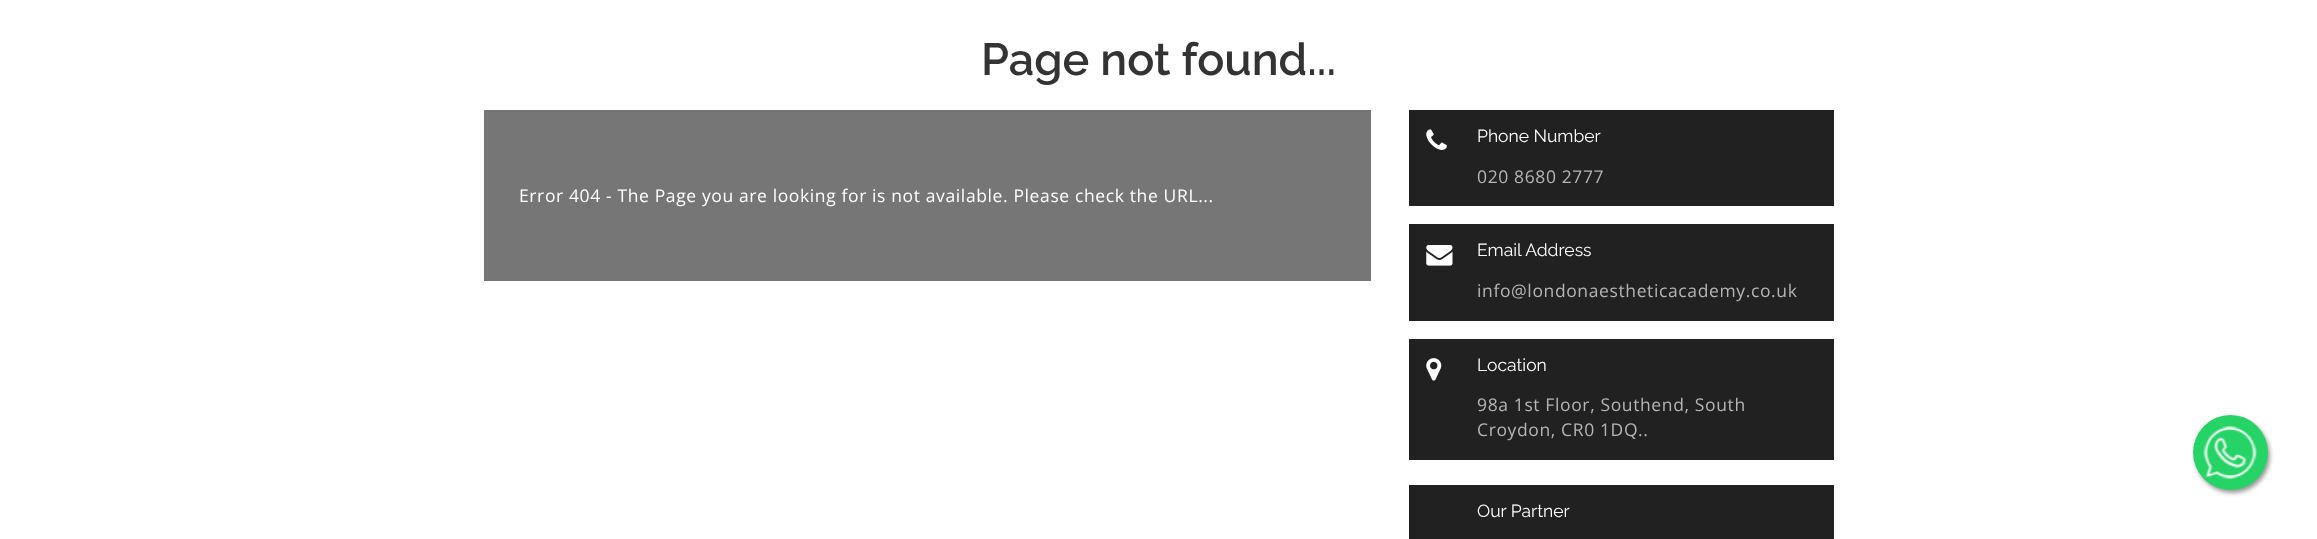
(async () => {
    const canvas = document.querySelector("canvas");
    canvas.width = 2317;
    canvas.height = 539;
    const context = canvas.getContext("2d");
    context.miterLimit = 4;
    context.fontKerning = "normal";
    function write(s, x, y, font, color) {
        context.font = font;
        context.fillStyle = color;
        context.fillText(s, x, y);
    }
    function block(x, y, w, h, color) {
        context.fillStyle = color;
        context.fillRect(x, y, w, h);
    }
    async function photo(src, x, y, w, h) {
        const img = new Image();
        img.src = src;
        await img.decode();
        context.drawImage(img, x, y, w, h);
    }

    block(0, 0, 2317, 539, "rgb(255, 255, 255)");
    write("Page not found...", 981, 75, "600 45px Raleway", "rgb(51, 51, 51)");
    block(484, 110, 887, 171, "rgb(118, 118, 118)");
    context.letterSpacing = "0.62px";
    write("Error 404 - The Page you are looking for is not available. Please check the URL...", 519, 202, "17.5px Open Sans", "rgb(255, 255, 255)");
    block(1409, 110, 425, 96, "rgb(33, 33, 33)");
    await photo("media/1.png", 1426, 129, 21, 21);
    context.letterSpacing = "0px";
    write("Phone Number", 1477, 142, "17.5px Raleway", "rgb(255, 255, 255)");
    context.letterSpacing = "0.62px";
    write("020 8680 2777", 1477, 183, "17.5px Open Sans", "rgb(181, 181, 181)");
    block(1409, 224, 425, 97, "rgb(33, 33, 33)");
    await photo("media/2.png", 1426, 245, 27, 21);
    context.letterSpacing = "0px";
    write("Email Address", 1477, 256, "17.5px Raleway", "rgb(255, 255, 255)");
    context.letterSpacing = "0.62px";
    write("info@londonaestheticacademy.co.uk", 1477, 297, "17.5px Open Sans", "rgb(181, 181, 181)");
    block(1409, 339, 425, 121, "rgb(33, 33, 33)");
    await photo("media/3.png", 1426, 358, 16, 23);
    context.letterSpacing = "0px";
    write("Location", 1477, 371, "17.5px Raleway", "rgb(255, 255, 255)");
    context.letterSpacing = "0.62px";
    write("98a 1st Floor, Southend, South", 1477, 411, "17.5px Open Sans", "rgb(181, 181, 181)");
    write("Croydon, CR0 1DQ..", 1477, 436, "17.5px Open Sans", "rgb(181, 181, 181)");
    block(1409, 485, 425, 54, "rgb(33, 33, 33)");
    context.letterSpacing = "0px";
    write("Our Partner", 1477, 517, "17.5px Raleway", "rgb(255, 255, 255)");
    context.fillStyle = "rgb(153, 153, 153)";
    context.filter = "blur(2px)";
    context.beginPath();
    context.roundRect(2195, 418, 75, 75, 37.5);
    context.fill();
    context.filter = "none";
    context.fillStyle = "rgb(37, 211, 102)";
    context.beginPath();
    context.arc(2230.5, 452.5, 37.5, 0, Math.PI * 2);
    context.fill();
    await photo("media/4.png", 2203, 426, 54, 53);
})();
